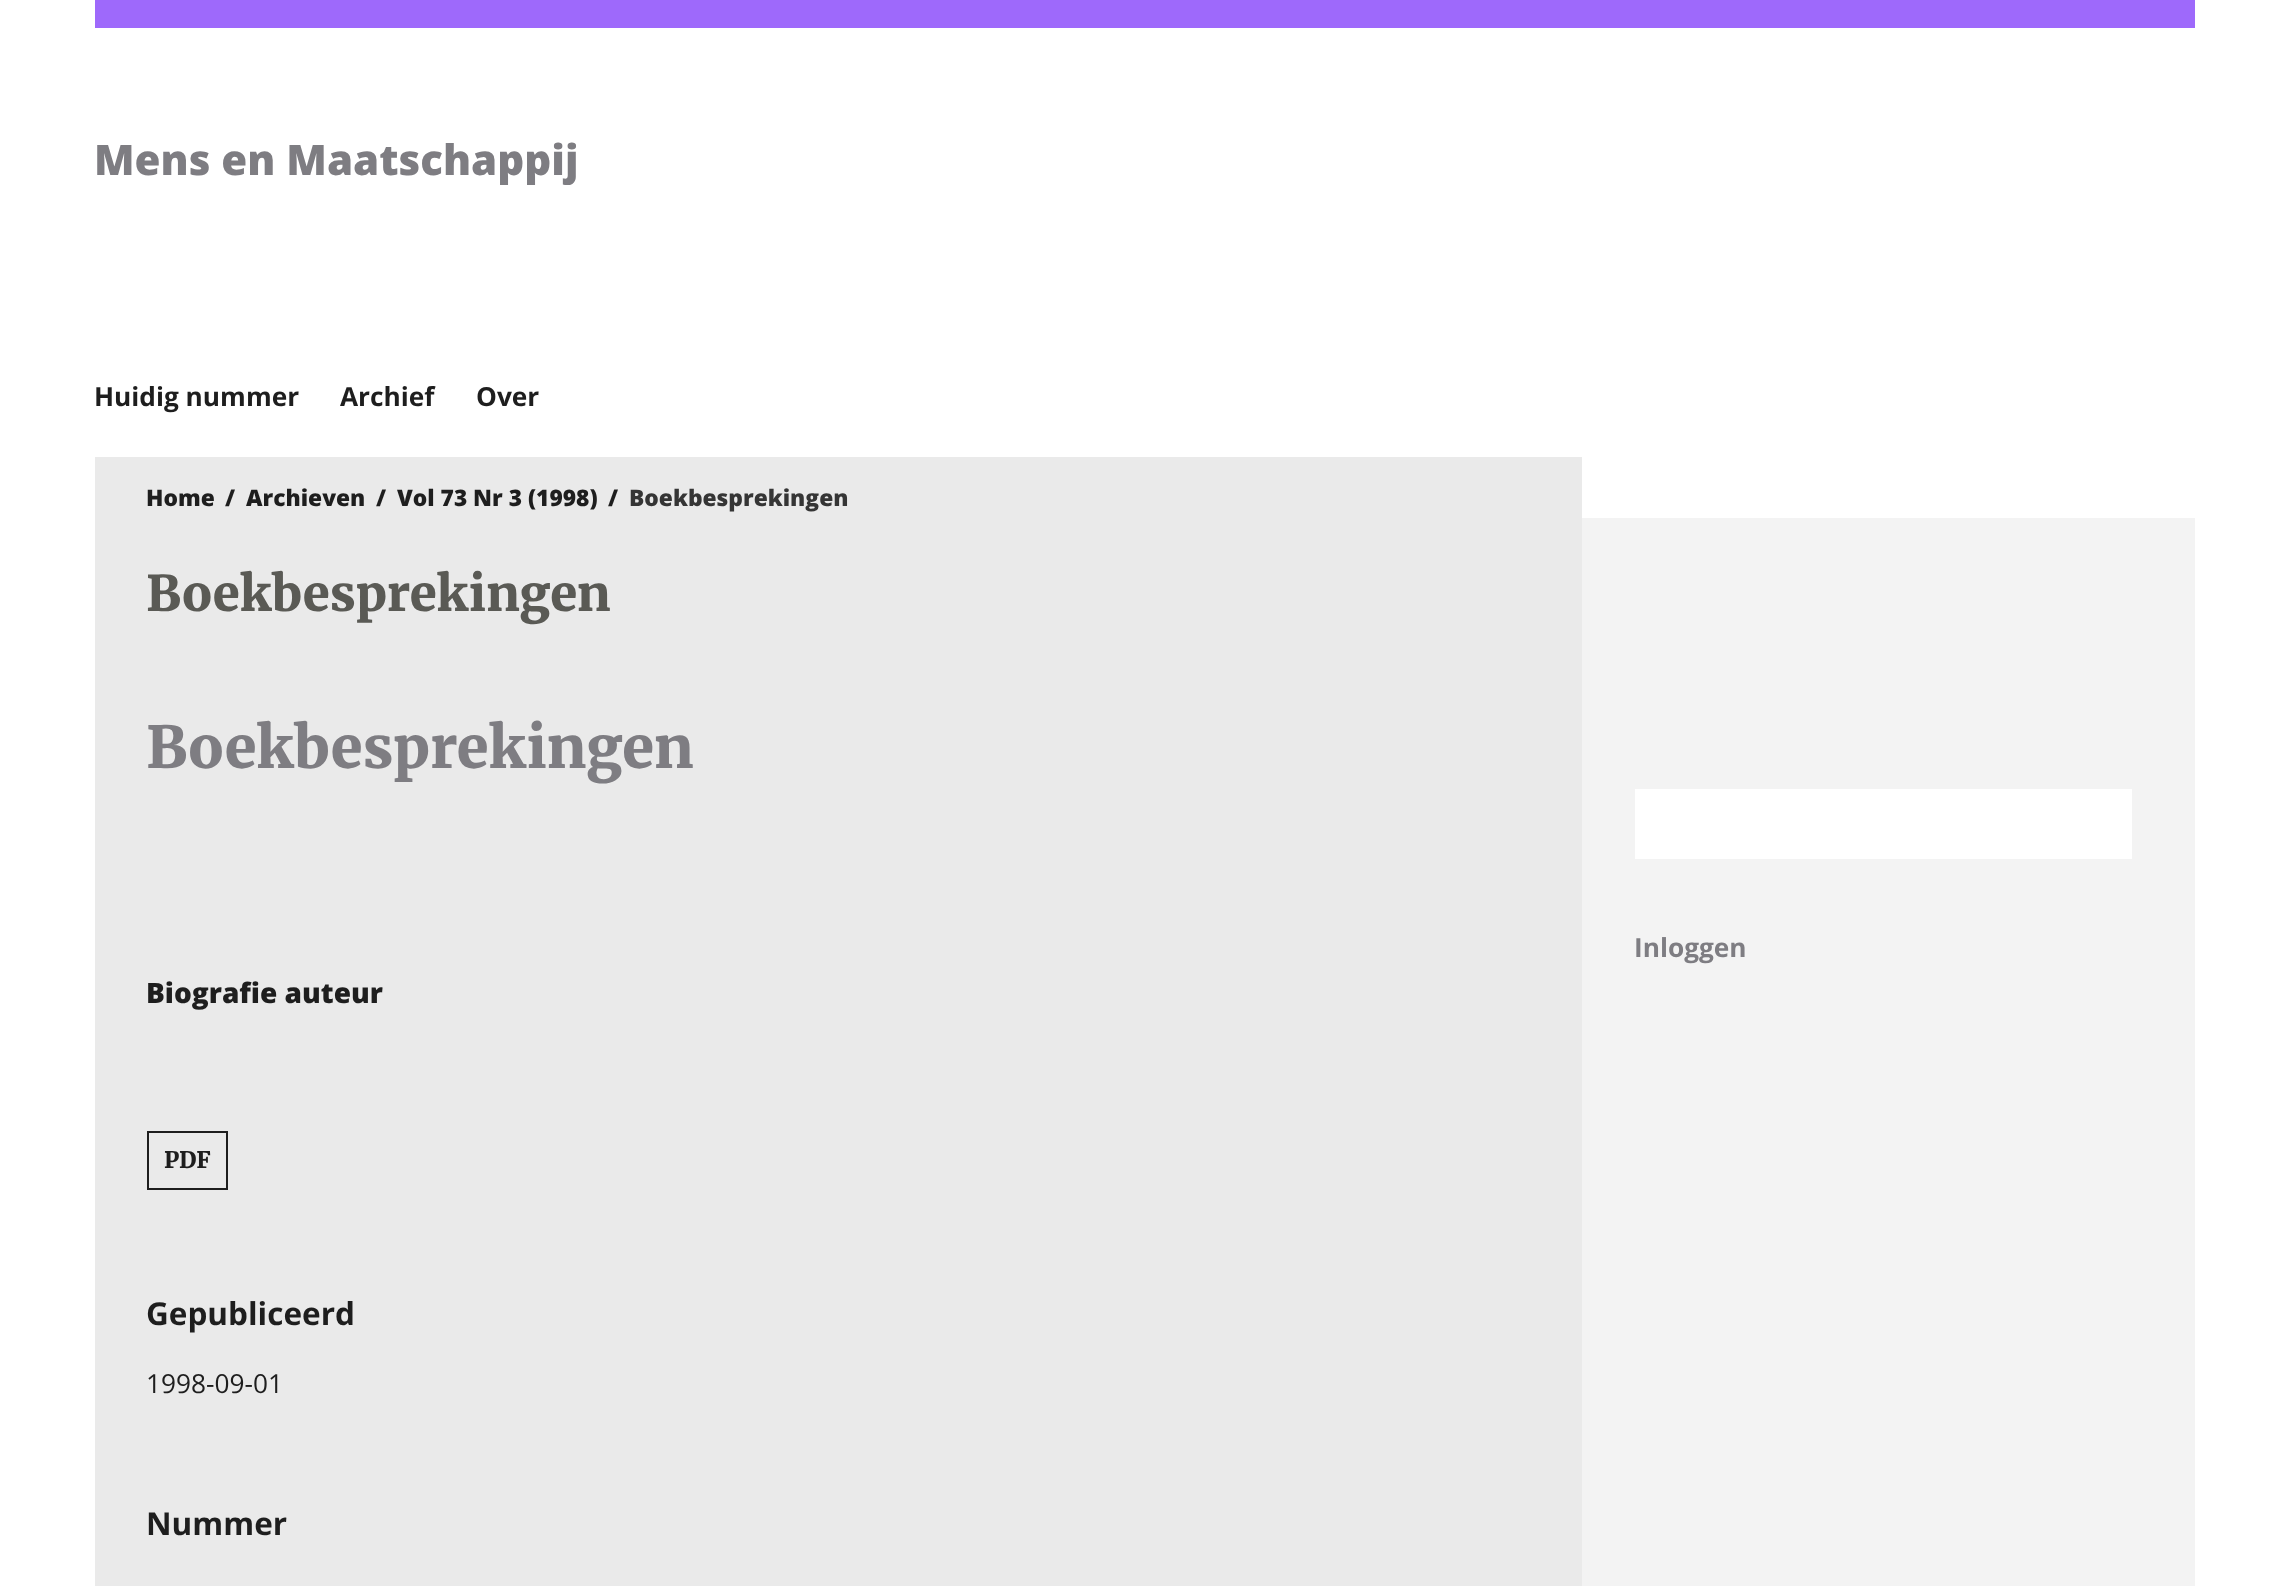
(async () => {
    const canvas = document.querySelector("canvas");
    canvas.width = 2286;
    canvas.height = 1586;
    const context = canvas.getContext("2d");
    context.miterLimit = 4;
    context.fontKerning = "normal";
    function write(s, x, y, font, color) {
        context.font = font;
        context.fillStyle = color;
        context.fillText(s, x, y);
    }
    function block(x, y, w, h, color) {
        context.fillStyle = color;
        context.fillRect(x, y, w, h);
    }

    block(0, 0, 2286, 1586, "rgb(255, 255, 255)");
    block(95, 0, 2100, 28, "rgb(158, 105, 251)");
    write("Mens en Maatschappij", 94, 175, "800 42px Open Sans", "rgb(126, 125, 130)");
    write("Huidig nummer", 94, 406, "bold 26.25px Open Sans", "rgb(30, 30, 30)");
    write("Archief", 340, 406, "bold 26.25px Open Sans", "rgb(30, 30, 30)");
    write("Over", 476, 406, "bold 26.25px Open Sans", "rgb(30, 30, 30)");
    block(95, 457, 1487, 1129, "rgb(234, 234, 234)");
    write("Home", 146, 506, "800 22.75px Open Sans", "rgb(30, 30, 30)");
    write("/", 225, 506, "800 22.75px Open Sans", "rgb(30, 30, 30)");
    write("Archieven", 246, 506, "800 22.75px Open Sans", "rgb(30, 30, 30)");
    write("/", 376, 506, "800 22.75px Open Sans", "rgb(30, 30, 30)");
    write("Vol 73 Nr 3 (1998)", 397, 506, "800 22.75px Open Sans", "rgb(30, 30, 30)");
    write("/", 608, 506, "800 22.75px Open Sans", "rgb(30, 30, 30)");
    write("Boekbesprekingen", 629, 506, "800 22.75px Open Sans", "rgb(53, 53, 53)");
    write("Boekbesprekingen", 146, 611, "900 49px Merriweather", "rgb(90, 90, 85)");
    write("Boekbesprekingen", 146, 768, "900 57.75px Merriweather", "rgb(126, 125, 130)");
    write("Biografie auteur", 146, 1003, "800 28px Open Sans", "rgb(30, 30, 30)");
    context.strokeStyle = "rgb(30, 30, 30)";
    context.lineWidth = 2;
    context.strokeRect(148, 1132, 79, 57);
    write("PDF", 164, 1168, "900 22.75px Merriweather", "rgb(30, 30, 30)");
    write("Gepubliceerd", 146, 1325, "bold 31.5px Open Sans", "rgb(30, 30, 30)");
    write("1998-09-01", 146, 1393, "26.25px Open Sans", "rgb(30, 30, 30)");
    write("Nummer", 146, 1535, "bold 31.5px Open Sans", "rgb(30, 30, 30)");
    block(1582, 518, 613, 1068, "rgb(243, 243, 243)");
    block(1635, 789, 497, 70, "rgb(255, 255, 255)");
    write("Inloggen", 1634, 957, "bold 26.25px Open Sans", "rgb(126, 125, 130)");
})();
